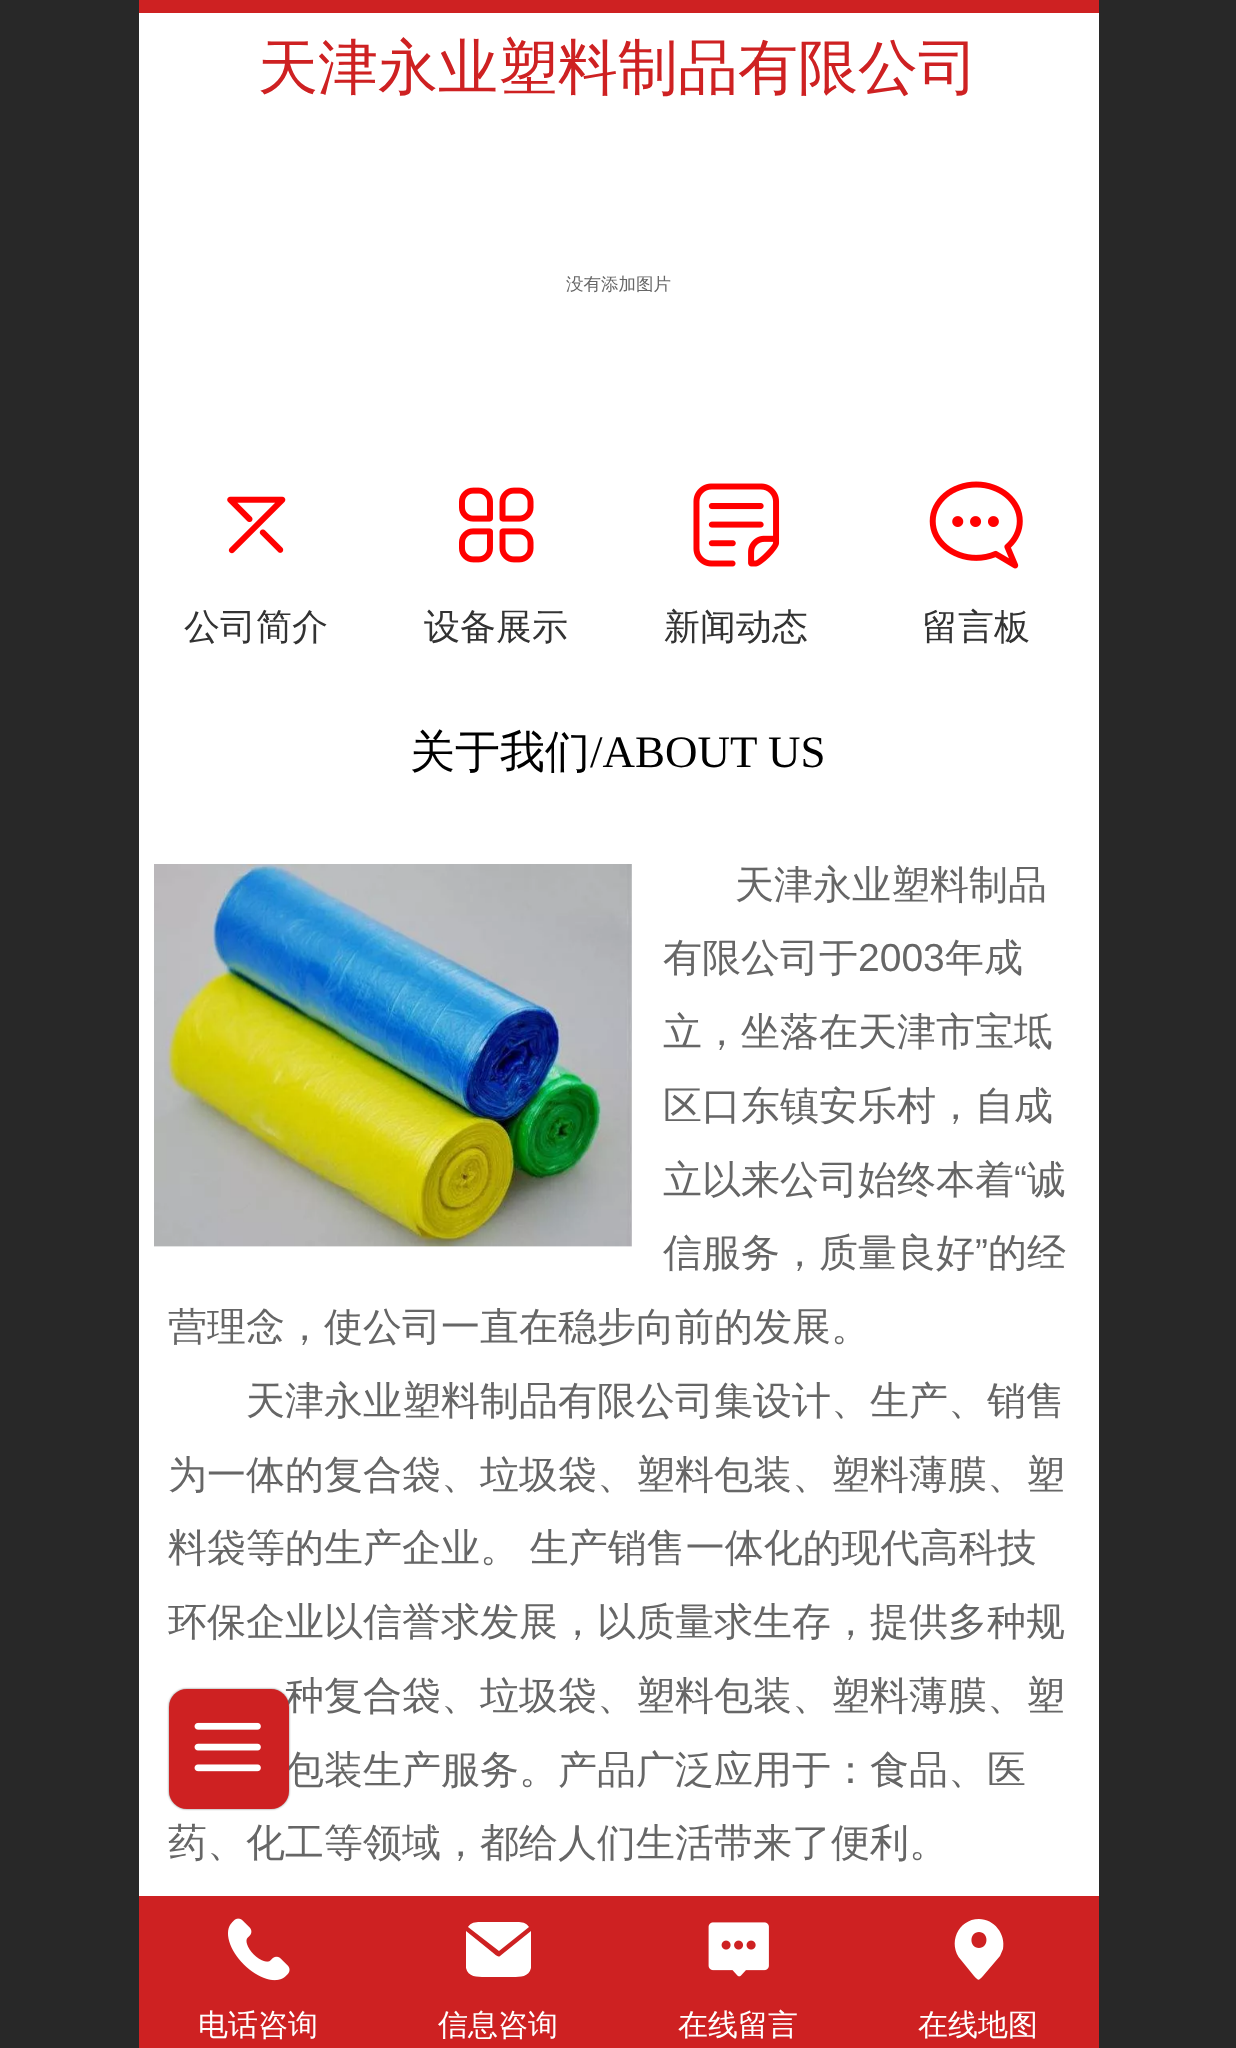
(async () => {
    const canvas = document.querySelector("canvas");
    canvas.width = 1236;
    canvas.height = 2048;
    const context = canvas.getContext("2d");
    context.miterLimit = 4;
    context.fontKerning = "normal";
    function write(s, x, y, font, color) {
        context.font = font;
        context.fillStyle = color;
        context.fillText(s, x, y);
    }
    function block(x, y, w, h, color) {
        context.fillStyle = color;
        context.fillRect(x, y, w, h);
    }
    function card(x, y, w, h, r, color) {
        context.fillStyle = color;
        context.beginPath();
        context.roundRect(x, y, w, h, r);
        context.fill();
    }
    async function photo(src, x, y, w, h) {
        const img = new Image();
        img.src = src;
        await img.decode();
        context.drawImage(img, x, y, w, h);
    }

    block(0, 0, 1236, 2048, "rgb(255, 255, 255)");
    block(0, 0, 139, 2048, "rgb(40, 40, 40)");
    block(139, 0, 960, 13, "rgb(206, 33, 34)");
    write("天津永业塑料制品有限公司", 258, 88, "500 60px WenQuanYi Zen Hei", "rgb(206, 33, 34)");
    context.fillStyle = "rgba(0, 0, 0, 0.5)";
    context.filter = "blur(1px)";
    context.beginPath();
    context.roundRect(169, 1689, 120, 120, 18);
    context.fill();
    context.filter = "none";
    write("种复合袋、垃圾袋、塑料包装、塑料薄膜、塑", 285, 1709, "500 39px WenQuanYi Zen Hei", "rgb(102, 102, 102)");
    write("包装生产服务。产品广泛应用于：食品、医", 285, 1783, "500 39px WenQuanYi Zen Hei", "rgb(102, 102, 102)");
    card(169, 1689, 120, 120, 18, "rgb(206, 33, 34)");
    await photo("media/1.png", 194, 1722, 67, 50);
    write("没有添加图片", 566, 290, "500 17.5px WenQuanYi Zen Hei", "rgb(102, 102, 102)");
    await photo("media/2.png", 227, 496, 59, 58);
    write("公司简介", 184, 639, "500 36px WenQuanYi Zen Hei", "rgb(51, 51, 51)");
    await photo("media/3.png", 459, 487, 75, 76);
    write("设备展示", 424, 639, "500 36px WenQuanYi Zen Hei", "rgb(51, 51, 51)");
    await photo("media/4.png", 693, 483, 87, 84);
    write("新闻动态", 664, 639, "500 36px WenQuanYi Zen Hei", "rgb(51, 51, 51)");
    await photo("media/5.png", 929, 481, 94, 88);
    write("留言板", 922, 639, "500 36px WenQuanYi Zen Hei", "rgb(51, 51, 51)");
    write("关于我们", 410, 767, "500 45px WenQuanYi Zen Hei", "rgb(0, 0, 0)");
    write("/ABOUT US", 590, 767, "45px Liberation Serif", "rgb(0, 0, 0)");
    await photo("media/6.png", 154, 864, 478, 383);
    write("天津永业塑料制品", 735, 898, "500 39px WenQuanYi Zen Hei", "rgb(102, 102, 102)");
    write("有限公司于", 663, 971, "500 39px WenQuanYi Zen Hei", "rgb(102, 102, 102)");
    write("2003", 858, 971, "39px Liberation Sans", "rgb(102, 102, 102)");
    write("年成", 945, 971, "500 39px WenQuanYi Zen Hei", "rgb(102, 102, 102)");
    write("立，坐落在天津市宝坻", 663, 1045, "500 39px WenQuanYi Zen Hei", "rgb(102, 102, 102)");
    write("区口东镇安乐村，自成", 663, 1119, "500 39px WenQuanYi Zen Hei", "rgb(102, 102, 102)");
    write("立以来公司始终本着", 663, 1193, "500 39px WenQuanYi Zen Hei", "rgb(102, 102, 102)");
    write("“", 1014, 1193, "39px Liberation Sans", "rgb(102, 102, 102)");
    write("诚", 1027, 1193, "500 39px WenQuanYi Zen Hei", "rgb(102, 102, 102)");
    write("信服务，质量良好", 663, 1266, "500 39px WenQuanYi Zen Hei", "rgb(102, 102, 102)");
    write("”", 975, 1266, "39px Liberation Sans", "rgb(102, 102, 102)");
    write("的经", 988, 1266, "500 39px WenQuanYi Zen Hei", "rgb(102, 102, 102)");
    write("营理念，使公司一直在稳步向前的发展。", 168, 1340, "500 39px WenQuanYi Zen Hei", "rgb(102, 102, 102)");
    write("天津永业塑料制品有限公司集设计、生产、销售", 246, 1414, "500 39px WenQuanYi Zen Hei", "rgb(102, 102, 102)");
    write("为一体的复合袋、垃圾袋、塑料包装、塑料薄膜、塑", 168, 1488, "500 39px WenQuanYi Zen Hei", "rgb(102, 102, 102)");
    context.wordSpacing = "-1px";
    write("料袋等的生产企业。 生产销售一体化的现代高科技", 168, 1561, "500 39px WenQuanYi Zen Hei", "rgb(102, 102, 102)");
    context.wordSpacing = "0px";
    write("环保企业以信誉求发展，以质量求生存，提供多种规", 168, 1635, "500 39px WenQuanYi Zen Hei", "rgb(102, 102, 102)");
    write("药、化工等领域，都给人们生活带来了便利。", 168, 1856, "500 39px WenQuanYi Zen Hei", "rgb(102, 102, 102)");
    block(139, 1896, 960, 152, "rgb(206, 33, 34)");
    await photo("media/7.png", 228, 1918, 62, 63);
    write("电话咨询", 198, 2035, "500 30px WenQuanYi Zen Hei", "rgb(255, 255, 255)");
    context.beginPath();
    context.moveTo(499, 1951);
    context.lineTo(529, 1927);
    context.bezierCurveTo(525, 1921, 519, 1922, 513, 1922);
    context.lineTo(485, 1922);
    context.bezierCurveTo(478, 1922, 472, 1921, 468, 1927);
    context.closePath();
    context.moveTo(500, 1956);
    context.bezierCurveTo(498, 1958, 495, 1954, 492, 1952);
    context.lineTo(466, 1931);
    context.lineTo(466, 1968);
    context.bezierCurveTo(468, 1977, 477, 1977, 485, 1977);
    context.lineTo(513, 1977);
    context.bezierCurveTo(520, 1977, 529, 1977, 531, 1968);
    context.lineTo(531, 1931);
    context.closePath();
    context.fill();
    write("信息咨询", 438, 2035, "500 30px WenQuanYi Zen Hei", "rgb(255, 255, 255)");
    await photo("media/8.png", 708, 1922, 61, 55);
    write("在线留言", 678, 2035, "500 30px WenQuanYi Zen Hei", "rgb(255, 255, 255)");
    context.beginPath();
    context.moveTo(979, 1919);
    context.bezierCurveTo(958, 1919, 947, 1944, 961, 1960);
    context.lineTo(974, 1976);
    context.bezierCurveTo(979, 1981, 978, 1981, 983, 1976);
    context.lineTo(1000, 1956);
    context.lineTo(1003, 1949);
    context.bezierCurveTo(1006, 1934, 994, 1919, 979, 1919);
    context.closePath();
    context.moveTo(979, 1948);
    context.bezierCurveTo(969, 1948, 969, 1932, 979, 1932);
    context.bezierCurveTo(989, 1932, 989, 1948, 979, 1948);
    context.closePath();
    context.fill();
    write("在线地图", 918, 2035, "500 30px WenQuanYi Zen Hei", "rgb(255, 255, 255)");
    block(1099, 0, 137, 2048, "rgb(40, 40, 40)");
})();
